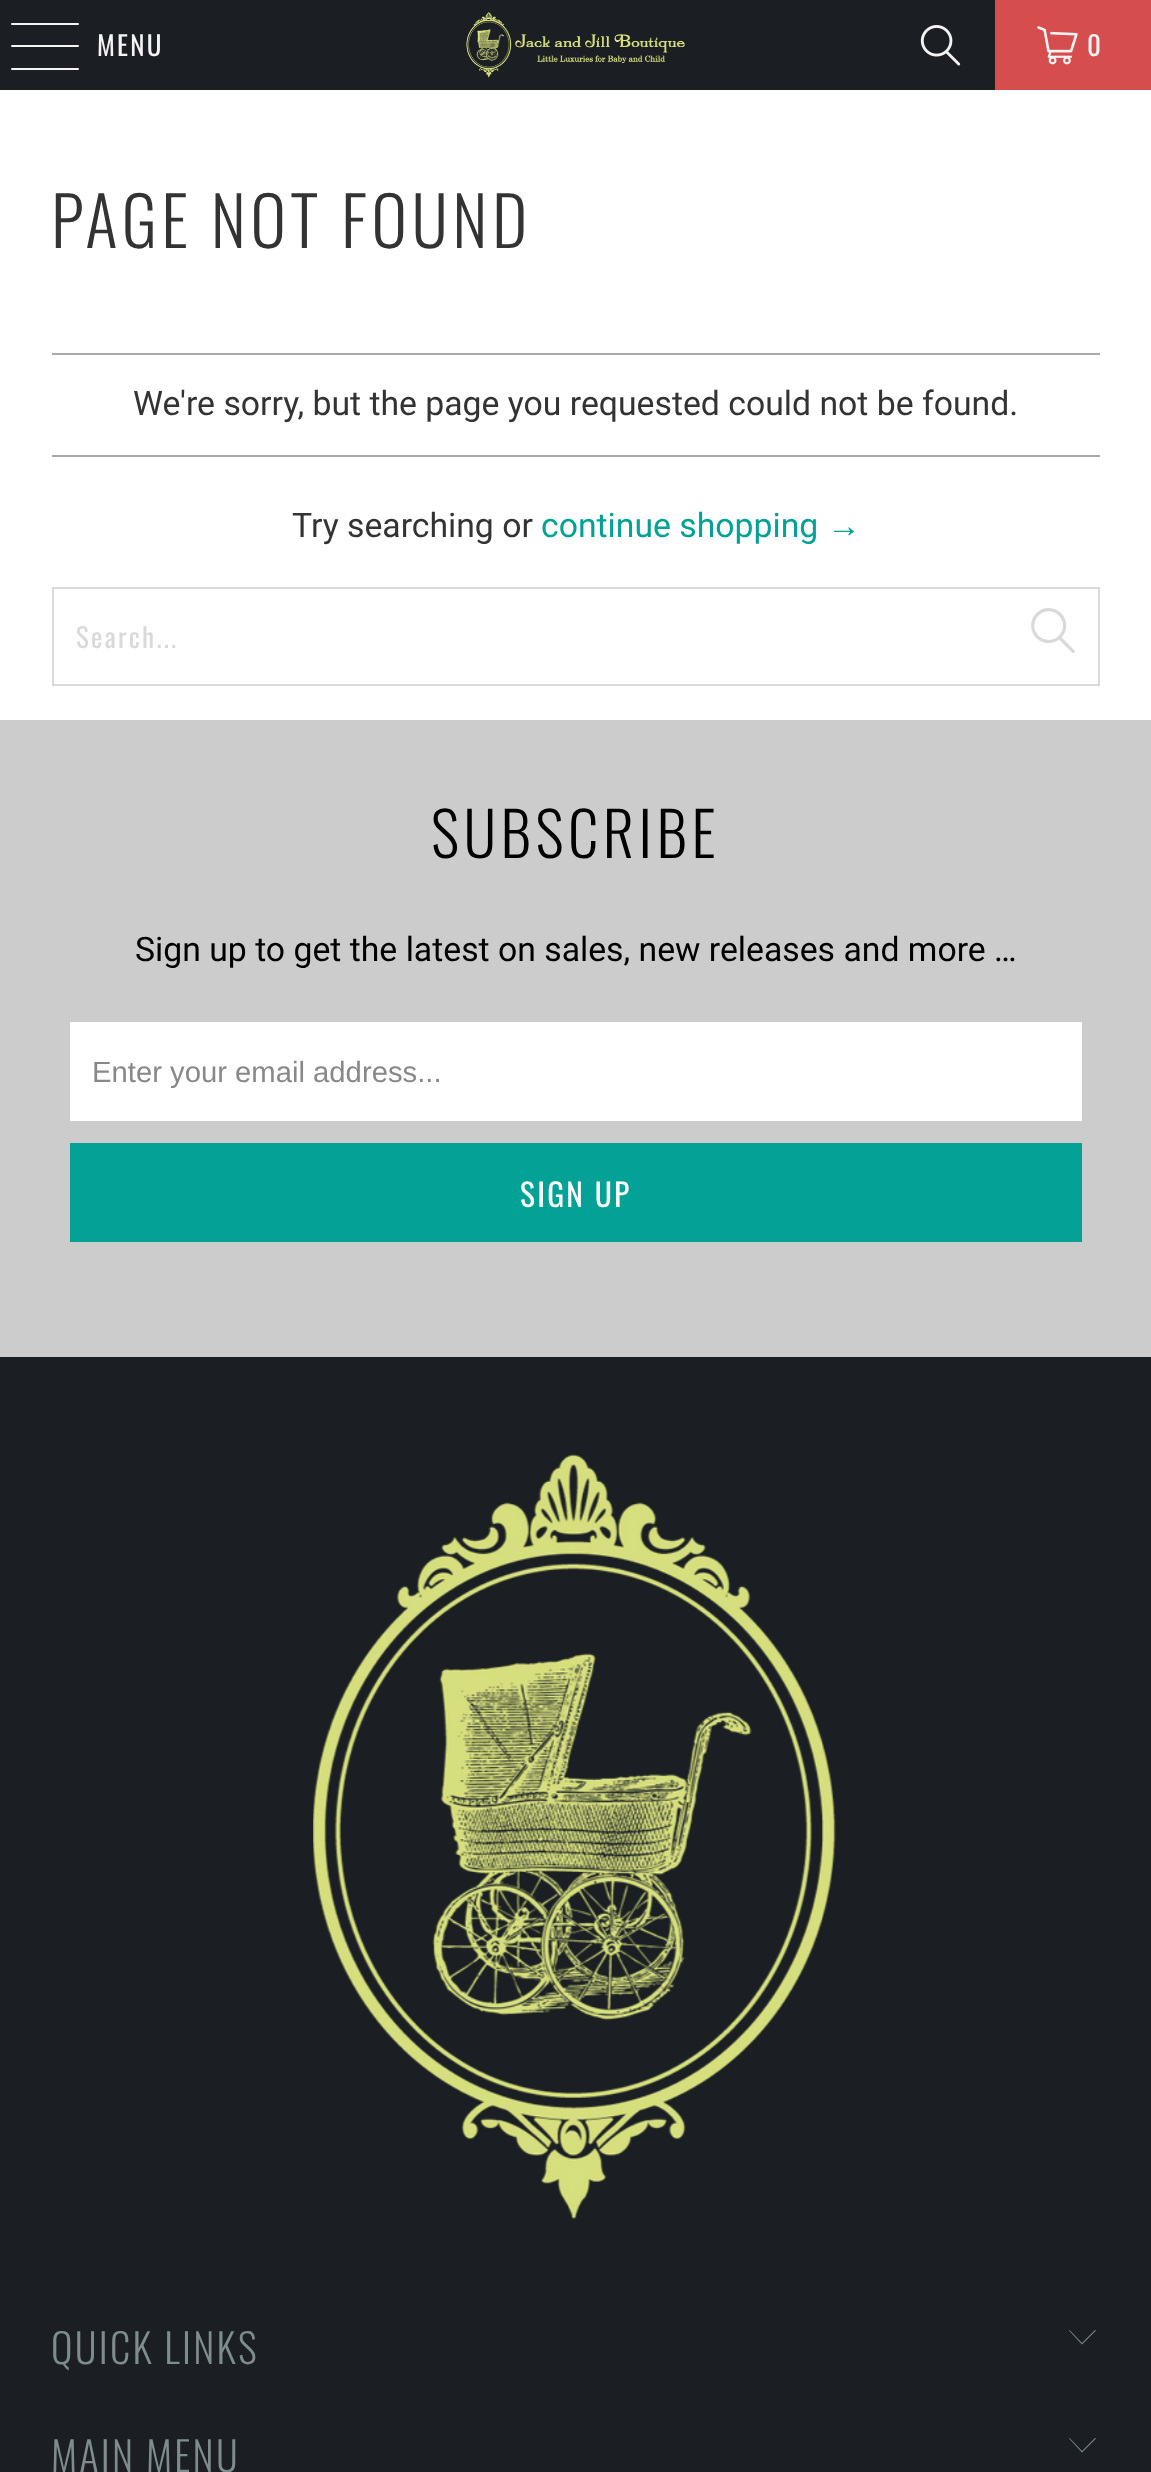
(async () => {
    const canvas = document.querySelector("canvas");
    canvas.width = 1151;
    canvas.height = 2472;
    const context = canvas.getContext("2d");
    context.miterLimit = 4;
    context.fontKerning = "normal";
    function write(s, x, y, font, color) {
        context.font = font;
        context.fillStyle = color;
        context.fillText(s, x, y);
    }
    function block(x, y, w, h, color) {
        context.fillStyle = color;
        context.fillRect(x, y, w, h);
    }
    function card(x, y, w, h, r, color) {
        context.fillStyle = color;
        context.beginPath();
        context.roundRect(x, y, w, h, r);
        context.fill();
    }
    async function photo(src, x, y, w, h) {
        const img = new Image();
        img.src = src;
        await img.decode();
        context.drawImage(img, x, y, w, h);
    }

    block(0, 0, 1151, 2472, "rgb(255, 255, 255)");
    block(0, 0, 995, 90, "rgb(27, 31, 35)");
    card(11, 23, 68, 2, 1, "rgb(244, 244, 244)");
    card(11, 45, 68, 2, 1, "rgb(244, 244, 244)");
    card(11, 68, 68, 2, 1, "rgb(244, 244, 244)");
    context.letterSpacing = "2.25px";
    write("MENU", 97, 56, "27px Oswald", "rgb(244, 244, 244)");
    await photo("media/1.png", 466, 12, 219, 66);
    await photo("media/2.png", 920, 25, 41, 41);
    block(995, 0, 156, 90, "rgb(213, 77, 77)");
    await photo("media/3.png", 1037, 26, 41, 39);
    write("0", 1087, 56, "27px Oswald", "rgb(244, 244, 244)");
    context.letterSpacing = "4.5px";
    write("PAGE NOT FOUND", 51, 248, "300 67.5px Oswald", "rgb(51, 51, 51)");
    block(52, 353, 1048, 2, "rgb(170, 170, 170)");
    block(52, 455, 1048, 2, "rgb(170, 170, 170)");
    context.letterSpacing = "0px";
    write("We're sorry, but the page you requested could not be found.", 133, 415, "33.75px Roboto", "rgb(51, 51, 51)");
    write("Try searching or", 292, 537, "33.75px Roboto", "rgb(51, 51, 51)");
    write("continue shopping", 541, 537, "33.75px Roboto", "rgb(3, 161, 150)");
    write("→", 827, 537, "33.75px Liberation Sans", "rgb(3, 161, 150)");
    context.strokeStyle = "rgb(217, 217, 217)";
    context.lineWidth = 2;
    context.strokeRect(53, 588, 1046, 97);
    context.letterSpacing = "2.25px";
    write("Search...", 76, 648, "27px Oswald", "rgb(217, 217, 217)");
    await photo("media/4.png", 1031, 608, 44, 45);
    block(0, 720, 1151, 637, "rgb(204, 204, 204)");
    context.letterSpacing = "4.5px";
    write("SUBSCRIBE", 431, 858, "300 60.75px Oswald", "rgb(0, 0, 0)");
    context.letterSpacing = "0px";
    write("Sign up to get the latest on sales, new releases and more …", 135, 961, "33.75px Roboto", "rgb(0, 0, 0)");
    block(70, 1022, 1012, 99, "rgb(255, 255, 255)");
    write("Enter your email address...", 92, 1082, "29.25px Liberation Sans", "rgb(136, 136, 136)");
    block(70, 1143, 1012, 99, "rgb(3, 161, 150)");
    context.letterSpacing = "2.25px";
    write("SIGN UP", 520, 1207, "31.5px Oswald", "rgb(255, 255, 255)");
    block(0, 1357, 1151, 1115, "rgb(27, 31, 35)");
    await photo("media/5.png", 313, 1454, 523, 765);
    write("QUICK LINKS", 51, 2364, "300 40.5px Oswald", "rgb(127, 140, 141)");
    context.beginPath();
    context.moveTo(1082, 2344.5);
    context.lineTo(1069, 2330.5);
    context.lineTo(1069.5, 2330);
    context.lineTo(1082, 2343);
    context.lineTo(1095, 2330);
    context.lineTo(1096, 2330.5);
    context.closePath();
    context.fill();
    write("MAIN MENU", 51, 2472, "300 40.5px Oswald", "rgb(127, 140, 141)");
    context.beginPath();
    context.moveTo(1082, 2452.5);
    context.lineTo(1069, 2438.5);
    context.lineTo(1069.5, 2438);
    context.lineTo(1082, 2451);
    context.lineTo(1095, 2438);
    context.lineTo(1096, 2438.5);
    context.closePath();
    context.fill();
})();
